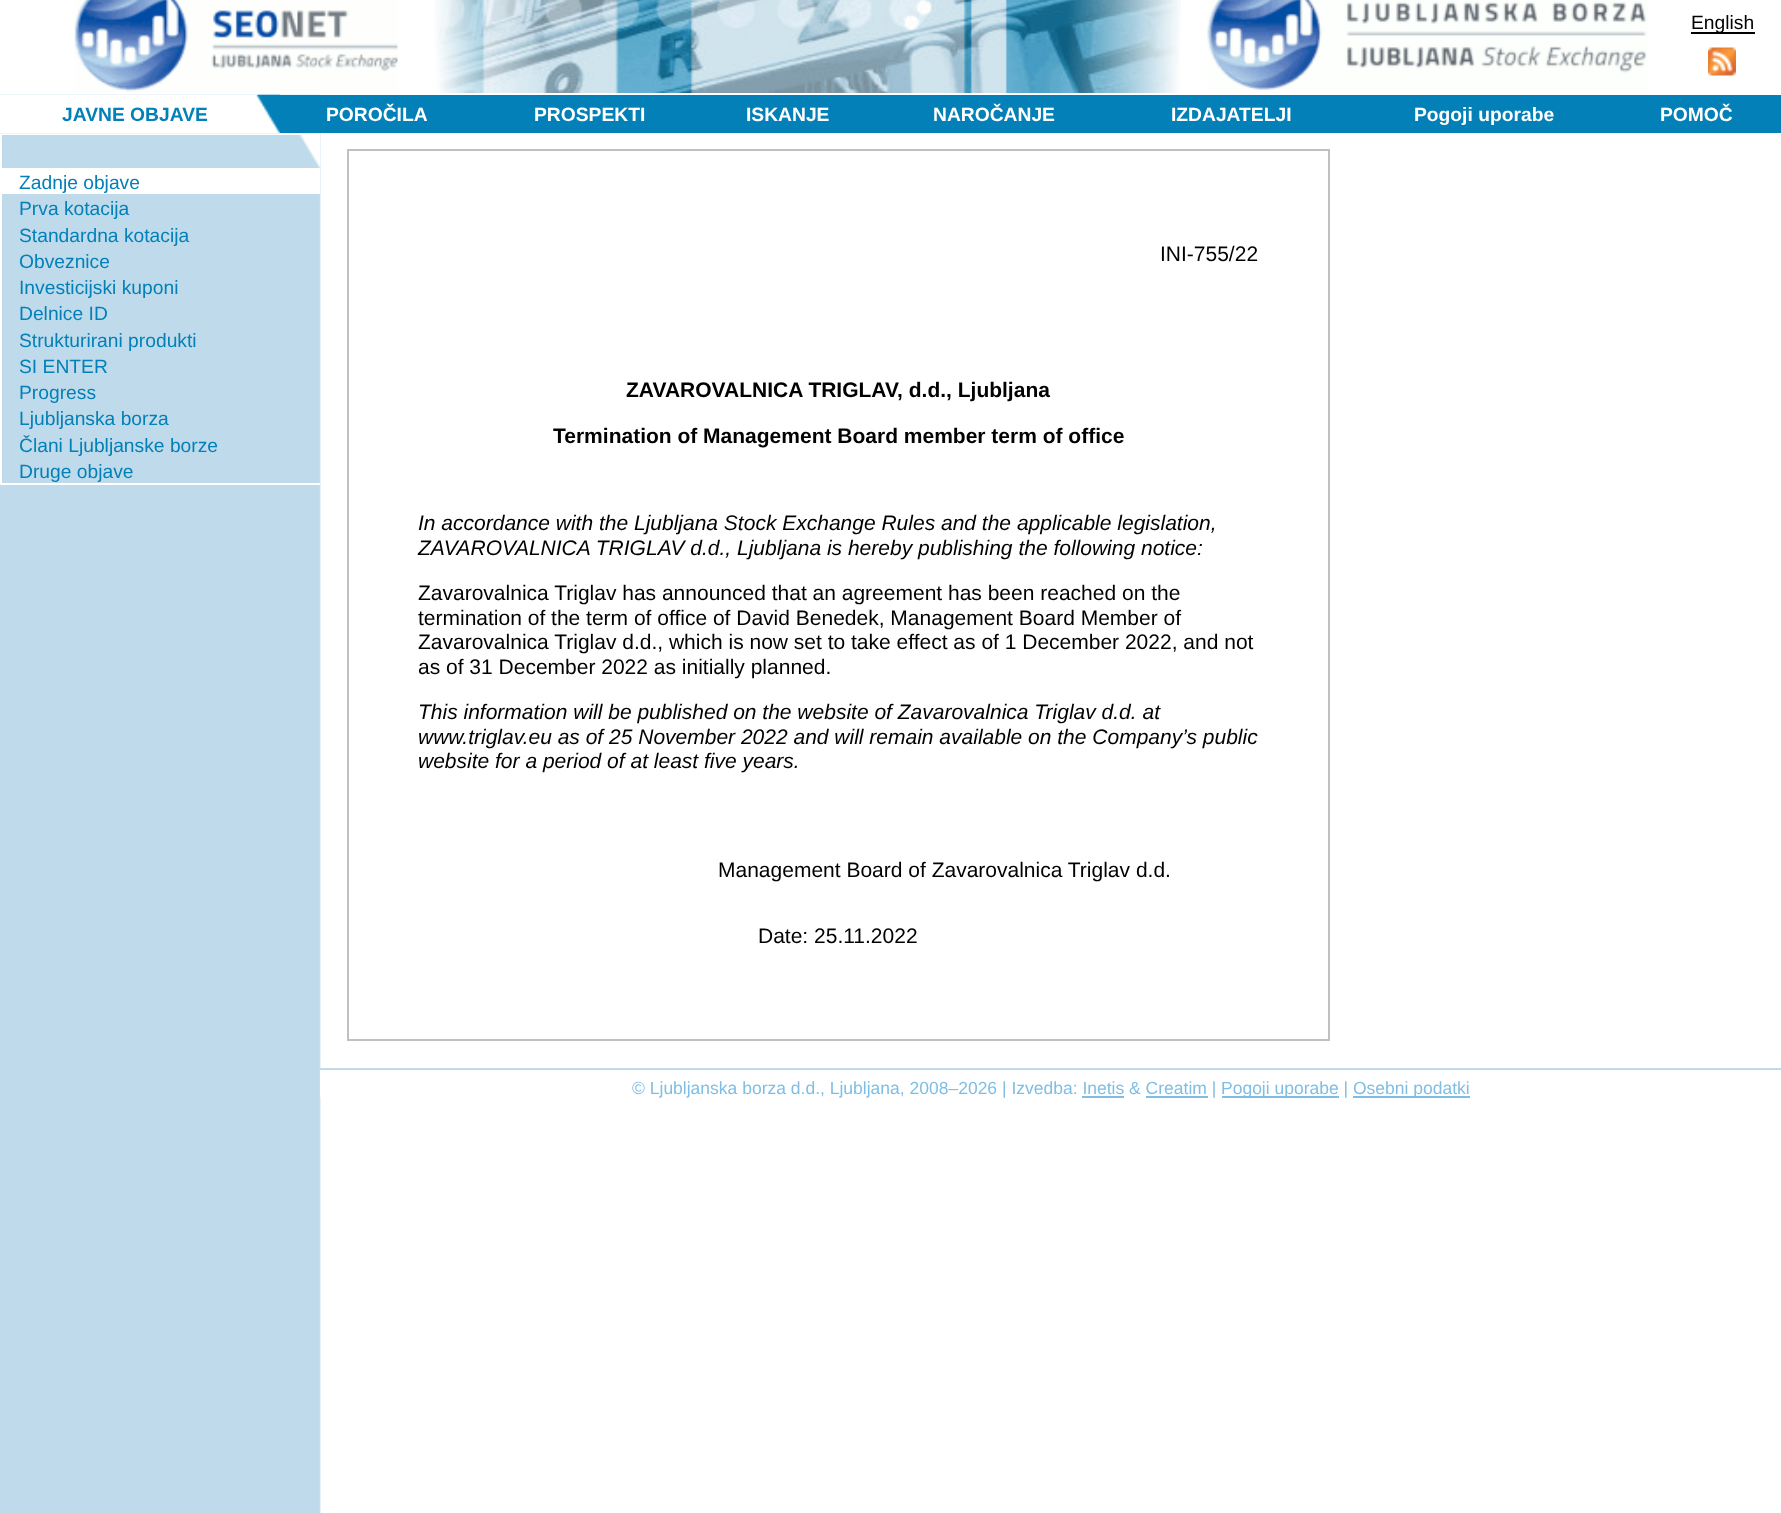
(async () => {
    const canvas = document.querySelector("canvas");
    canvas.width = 1781;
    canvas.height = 1513;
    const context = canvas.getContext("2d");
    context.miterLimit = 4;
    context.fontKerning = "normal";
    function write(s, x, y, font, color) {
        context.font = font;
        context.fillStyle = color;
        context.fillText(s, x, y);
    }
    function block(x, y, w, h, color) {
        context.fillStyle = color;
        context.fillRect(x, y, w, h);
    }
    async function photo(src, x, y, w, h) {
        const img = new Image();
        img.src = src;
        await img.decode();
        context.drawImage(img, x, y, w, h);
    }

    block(0, 0, 1781, 1513, "rgb(255, 255, 255)");
    await photo("media/1.png", 74, 0, 324, 92);
    await photo("media/2.png", 434, 0, 747, 93);
    await photo("media/3.png", 1207, 0, 441, 90);
    block(1691, 32, 64, 2, "rgb(0, 0, 0)");
    write("English", 1691, 29, "19.25px Liberation Sans", "rgb(0, 0, 0)");
    await photo("media/4.png", 1708, 47, 28, 29);
    await photo("media/5.png", 0, 94, 321, 1419);
    block(0, 95, 279, 38, "rgb(255, 255, 255)");
    await photo("media/6.png", 255, 94, 25, 40);
    write("JAVNE OBJAVE", 62, 121, "bold 19.25px Liberation Sans", "rgb(3, 128, 183)");
    block(280, 95, 1501, 38, "rgb(3, 128, 183)");
    write("POROČILA", 326, 121, "bold 19.25px Liberation Sans", "rgb(255, 255, 255)");
    write("PROSPEKTI", 534, 121, "bold 19.25px Liberation Sans", "rgb(255, 255, 255)");
    write("ISKANJE", 746, 121, "bold 19.25px Liberation Sans", "rgb(255, 255, 255)");
    write("NAROČANJE", 933, 121, "bold 19.25px Liberation Sans", "rgb(255, 255, 255)");
    write("IZDAJATELJI", 1171, 121, "bold 19.25px Liberation Sans", "rgb(255, 255, 255)");
    write("Pogoji uporabe", 1414, 121, "bold 19.25px Liberation Sans", "rgb(255, 255, 255)");
    write("POMOČ", 1660, 121, "bold 19.25px Liberation Sans", "rgb(255, 255, 255)");
    await photo("media/7.png", 0, 133, 321, 2);
    block(0, 135, 2, 33, "rgb(255, 255, 255)");
    block(2, 168, 318, 26, "rgb(255, 255, 255)");
    await photo("media/8.png", 299, 135, 22, 34);
    block(0, 483, 320, 2, "rgb(255, 255, 255)");
    block(0, 168, 2, 317, "rgb(255, 255, 255)");
    write("Zadnje objave", 19, 189, "19.25px Liberation Sans", "rgb(3, 128, 183)");
    write("Prva kotacija", 19, 215, "19.25px Liberation Sans", "rgb(3, 128, 183)");
    write("Standardna kotacija", 19, 242, "19.25px Liberation Sans", "rgb(3, 128, 183)");
    write("Obveznice", 19, 268, "19.25px Liberation Sans", "rgb(3, 128, 183)");
    write("Investicijski kuponi", 19, 294, "19.25px Liberation Sans", "rgb(3, 128, 183)");
    write("Delnice ID", 19, 320, "19.25px Liberation Sans", "rgb(3, 128, 183)");
    write("Strukturirani produkti", 19, 347, "19.25px Liberation Sans", "rgb(3, 128, 183)");
    write("SI ENTER", 19, 373, "19.25px Liberation Sans", "rgb(3, 128, 183)");
    write("Progress", 19, 399, "19.25px Liberation Sans", "rgb(3, 128, 183)");
    write("Ljubljanska borza", 19, 425, "19.25px Liberation Sans", "rgb(3, 128, 183)");
    write("Člani Ljubljanske borze", 19, 452, "19.25px Liberation Sans", "rgb(3, 128, 183)");
    write("Druge objave", 19, 478, "19.25px Liberation Sans", "rgb(3, 128, 183)");
    context.strokeStyle = "rgb(192, 192, 192)";
    context.lineWidth = 2;
    context.strokeRect(348, 150, 981, 890);
    write("INI-755/22", 1160, 261, "21px Liberation Sans", "rgb(0, 0, 0)");
    write("ZAVAROVALNICA TRIGLAV, d.d., Ljubljana", 626, 397, "bold 21px Liberation Sans", "rgb(0, 0, 0)");
    write("Termination of Management Board member term of office", 553, 443, "bold 21px Liberation Sans", "rgb(0, 0, 0)");
    write("In accordance with the Ljubljana Stock Exchange Rules and the applicable legislation,", 418, 530, "italic 21px Liberation Sans", "rgb(0, 0, 0)");
    write("ZAVAROVALNICA TRIGLAV d.d., Ljubljana is hereby publishing the following notice:", 418, 555, "italic 21px Liberation Sans", "rgb(0, 0, 0)");
    write("Zavarovalnica Triglav has announced that an agreement has been reached on the", 418, 600, "21px Liberation Sans", "rgb(0, 0, 0)");
    write("termination of the term of office of David Benedek, Management Board Member of", 418, 625, "21px Liberation Sans", "rgb(0, 0, 0)");
    write("Zavarovalnica Triglav d.d., which is now set to take effect as of 1 December 2022, and not", 418, 649, "21px Liberation Sans", "rgb(0, 0, 0)");
    write("as of 31 December 2022 as initially planned.", 418, 674, "21px Liberation Sans", "rgb(0, 0, 0)");
    write("This information will be published on the website of Zavarovalnica Triglav d.d. at", 418, 719, "italic 21px Liberation Sans", "rgb(0, 0, 0)");
    write("www.triglav.eu as of 25 November 2022 and will remain available on the Company’s public", 418, 744, "italic 21px Liberation Sans", "rgb(0, 0, 0)");
    write("website for a period of at least five years.", 418, 768, "italic 21px Liberation Sans", "rgb(0, 0, 0)");
    write("Management Board of Zavarovalnica Triglav d.d.", 718, 877, "21px Liberation Sans", "rgb(0, 0, 0)");
    write("Date: 25.11.2022", 758, 943, "21px Liberation Sans", "rgb(0, 0, 0)");
    block(320, 1070, 1, 27, "rgb(255, 255, 255)");
    block(320, 1068, 1461, 2, "rgb(191, 219, 235)");
    write("© Ljubljanska borza d.d., Ljubljana, 2008–2026 | Izvedba: Inetis & Creatim |", 632, 1094, "17.5px Liberation Sans", "rgb(126, 190, 228)");
    block(1222, 1096, 117, 2, "rgb(126, 190, 228)");
    write("Pogoji uporabe |", 1221, 1094, "17.5px Liberation Sans", "rgb(126, 190, 228)");
    block(1353, 1096, 117, 2, "rgb(126, 190, 228)");
    write("Osebni podatki", 1353, 1094, "17.5px Liberation Sans", "rgb(126, 190, 228)");
    block(1082, 1096, 42, 2, "rgb(126, 190, 228)");
    block(1146, 1096, 62, 2, "rgb(126, 190, 228)");
})();
